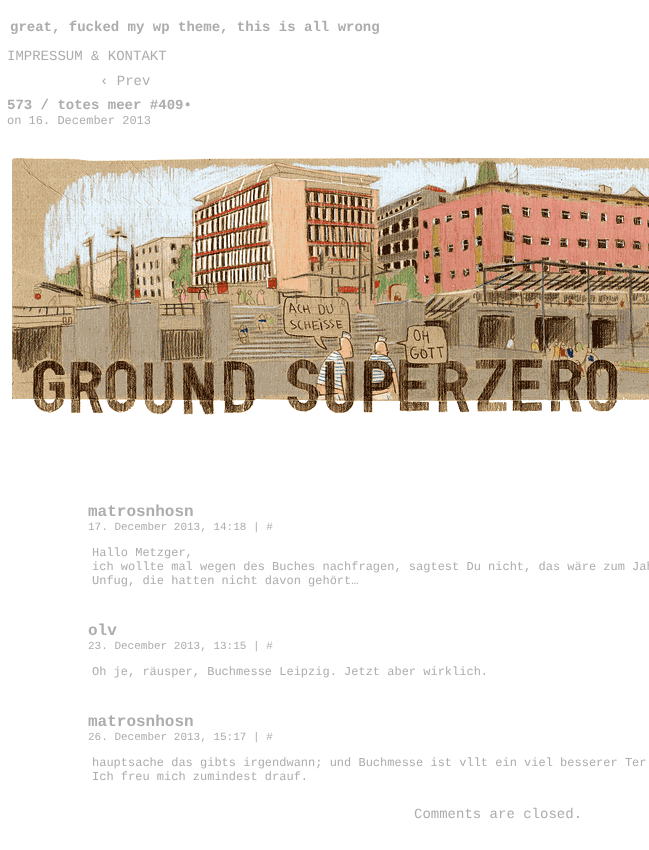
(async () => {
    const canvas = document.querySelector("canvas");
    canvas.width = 649;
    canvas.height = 850;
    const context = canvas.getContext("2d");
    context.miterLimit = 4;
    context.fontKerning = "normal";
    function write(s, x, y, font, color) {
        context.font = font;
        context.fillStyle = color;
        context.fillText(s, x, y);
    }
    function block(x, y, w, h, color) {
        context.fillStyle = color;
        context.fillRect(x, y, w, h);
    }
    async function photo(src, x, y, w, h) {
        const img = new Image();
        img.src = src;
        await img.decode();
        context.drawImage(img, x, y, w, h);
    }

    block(0, 0, 649, 850, "rgb(255, 255, 255)");
    write("great, fucked my wp theme, this is all wrong", 10, 31, "bold 14px Liberation Mono", "rgb(173, 173, 173)");
    write("IMPRESSUM & KONTAKT", 7, 60, "14px Liberation Mono", "rgb(173, 173, 173)");
    write("‹ Prev", 100, 85, "14px Liberation Mono", "rgb(173, 173, 173)");
    write("573 / totes meer #409•", 7, 109, "bold 14px Liberation Mono", "rgb(173, 173, 173)");
    write("on 16. December 2013", 7, 124, "12px Liberation Mono", "rgb(173, 173, 173)");
    await photo("media/1.png", 12, 158, 637, 257);
    write("matrosnhosn", 88, 516, "bold 16px Liberation Mono", "rgb(173, 173, 173)");
    write("17. December 2013, 14:18 | #", 88, 530, "11px Liberation Mono", "rgb(173, 173, 173)");
    write("Hallo Metzger,", 92, 556, "12px Liberation Mono", "rgb(173, 173, 173)");
    write("ich wollte mal wegen des Buches nachfragen, sagtest Du nicht, das wäre zum Jah", 92, 570, "12px Liberation Mono", "rgb(173, 173, 173)");
    write("Unfug, die hatten nicht davon gehört…", 92, 584, "12px Liberation Mono", "rgb(173, 173, 173)");
    write("olv", 88, 635, "bold 16px Liberation Mono", "rgb(173, 173, 173)");
    write("23. December 2013, 13:15 | #", 88, 649, "11px Liberation Mono", "rgb(173, 173, 173)");
    write("Oh je, räusper, Buchmesse Leipzig. Jetzt aber wirklich.", 92, 675, "12px Liberation Mono", "rgb(173, 173, 173)");
    write("matrosnhosn", 88, 726, "bold 16px Liberation Mono", "rgb(173, 173, 173)");
    write("26. December 2013, 15:17 | #", 88, 740, "11px Liberation Mono", "rgb(173, 173, 173)");
    write("hauptsache das gibts irgendwann; und Buchmesse ist vllt ein viel besserer Ter", 92, 766, "12px Liberation Mono", "rgb(173, 173, 173)");
    write("Ich freu mich zumindest drauf.", 92, 780, "12px Liberation Mono", "rgb(173, 173, 173)");
    write("Comments are closed.", 414, 818, "14px Liberation Mono", "rgb(173, 173, 173)");
})();
